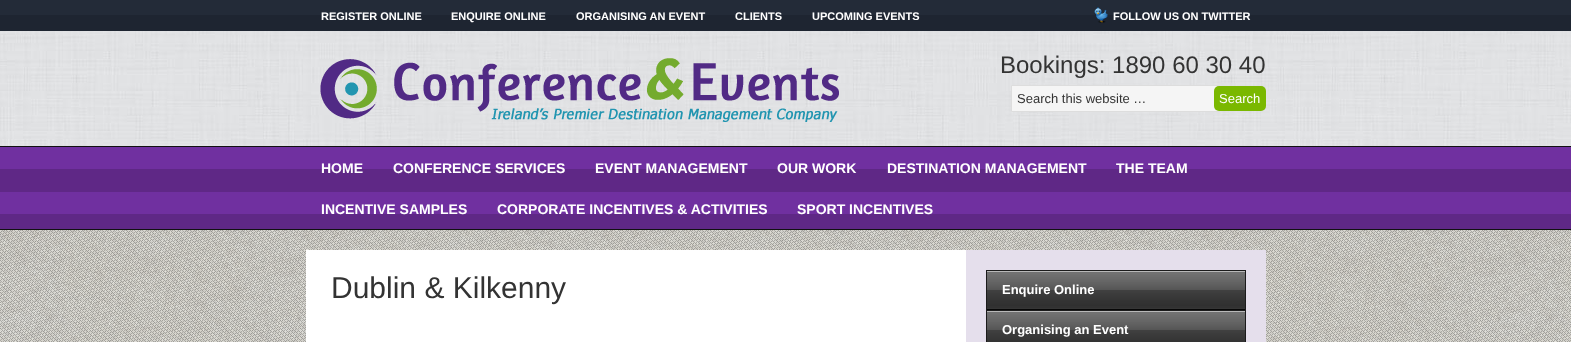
(async () => {
    const canvas = document.querySelector("canvas");
    canvas.width = 1571;
    canvas.height = 342;
    const context = canvas.getContext("2d");
    context.miterLimit = 4;
    context.fontKerning = "normal";
    function write(s, x, y, font, color) {
        context.font = font;
        context.fillStyle = color;
        context.fillText(s, x, y);
    }
    function block(x, y, w, h, color) {
        context.fillStyle = color;
        context.fillRect(x, y, w, h);
    }
    function card(x, y, w, h, r, color) {
        context.fillStyle = color;
        context.beginPath();
        context.roundRect(x, y, w, h, r);
        context.fill();
    }
    async function photo(src, x, y, w, h) {
        const img = new Image();
        img.src = src;
        await img.decode();
        context.drawImage(img, x, y, w, h);
    }

    block(0, 0, 1571, 342, "rgb(255, 255, 255)");
    await photo("media/1.png", 0, 230, 1571, 112);
    block(0, 15, 1571, 16, "rgb(30, 37, 49)");
    block(0, 0, 1571, 15, "rgb(35, 43, 56)");
    write("REGISTER ONLINE", 321, 20, "bold 11px Liberation Sans", "rgb(255, 255, 255)");
    write("ENQUIRE ONLINE", 451, 20, "bold 11px Liberation Sans", "rgb(255, 255, 255)");
    write("ORGANISING AN EVENT", 576, 20, "bold 11px Liberation Sans", "rgb(255, 255, 255)");
    write("CLIENTS", 735, 20, "bold 11px Liberation Sans", "rgb(255, 255, 255)");
    write("UPCOMING EVENTS", 812, 20, "bold 11px Liberation Sans", "rgb(255, 255, 255)");
    await photo("media/2.png", 1094, 7, 14, 16);
    write("FOLLOW US ON TWITTER", 1113, 20, "bold 11px Liberation Sans", "rgb(255, 255, 255)");
    await photo("media/3.png", 0, 31, 1571, 115);
    await photo("media/4.png", 320, 58, 519, 64);
    write("Bookings: 1890 60 30 40", 1000, 73, "24px Liberation Sans", "rgb(51, 51, 51)");
    context.fillStyle = "rgb(245, 245, 245)";
    context.beginPath();
    context.rect(1011.5, 85.5, 208, 26);
    context.fill();
    context.strokeStyle = "rgb(221, 221, 221)";
    context.stroke();
    write("Search this website …", 1017, 103, "13px Liberation Sans", "rgb(51, 51, 51)");
    card(1214, 86, 52, 25, 5, "rgb(122, 184, 0)");
    write("Search", 1219, 103, "13px Liberation Sans", "rgb(255, 255, 255)");
    block(0, 214, 1571, 15, "rgb(95, 40, 134)");
    await photo("media/5.png", 0, 147, 1571, 67);
    block(0, 146, 1571, 1, "rgb(17, 17, 17)");
    block(0, 229, 1571, 1, "rgb(17, 17, 17)");
    write("HOME", 321, 173, "bold 14px Liberation Sans", "rgb(255, 255, 255)");
    write("CONFERENCE SERVICES", 393, 173, "bold 14px Liberation Sans", "rgb(255, 255, 255)");
    write("EVENT MANAGEMENT", 595, 173, "bold 14px Liberation Sans", "rgb(255, 255, 255)");
    write("OUR WORK", 777, 173, "bold 14px Liberation Sans", "rgb(255, 255, 255)");
    write("DESTINATION MANAGEMENT", 887, 173, "bold 14px Liberation Sans", "rgb(255, 255, 255)");
    write("THE TEAM", 1116, 173, "bold 14px Liberation Sans", "rgb(255, 255, 255)");
    write("INCENTIVE SAMPLES", 321, 214, "bold 14px Liberation Sans", "rgb(255, 255, 255)");
    write("CORPORATE INCENTIVES & ACTIVITIES", 497, 214, "bold 14px Liberation Sans", "rgb(255, 255, 255)");
    write("SPORT INCENTIVES", 797, 214, "bold 14px Liberation Sans", "rgb(255, 255, 255)");
    context.fillStyle = "rgb(102, 102, 102)";
    context.filter = "blur(0.5px)";
    context.beginPath();
    context.rect(306, 251, 960, 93);
    context.fill();
    context.filter = "none";
    block(306, 250, 660, 92, "rgb(255, 255, 255)");
    write("Dublin & Kilkenny", 331, 298, "30px Liberation Sans", "rgb(51, 51, 51)");
    block(966, 250, 300, 92, "rgb(229, 223, 236)");
    await photo("media/6.png", 987, 270, 258, 40);
    block(1245, 270, 1, 72, "rgb(27, 27, 27)");
    block(986, 270, 1, 72, "rgb(27, 27, 27)");
    write("Enquire Online", 1002, 294, "bold 13px Liberation Sans", "rgb(255, 255, 255)");
    await photo("media/7.png", 987, 310, 258, 32);
    write("Organising an Event", 1002, 334, "bold 13px Liberation Sans", "rgb(255, 255, 255)");
})();
